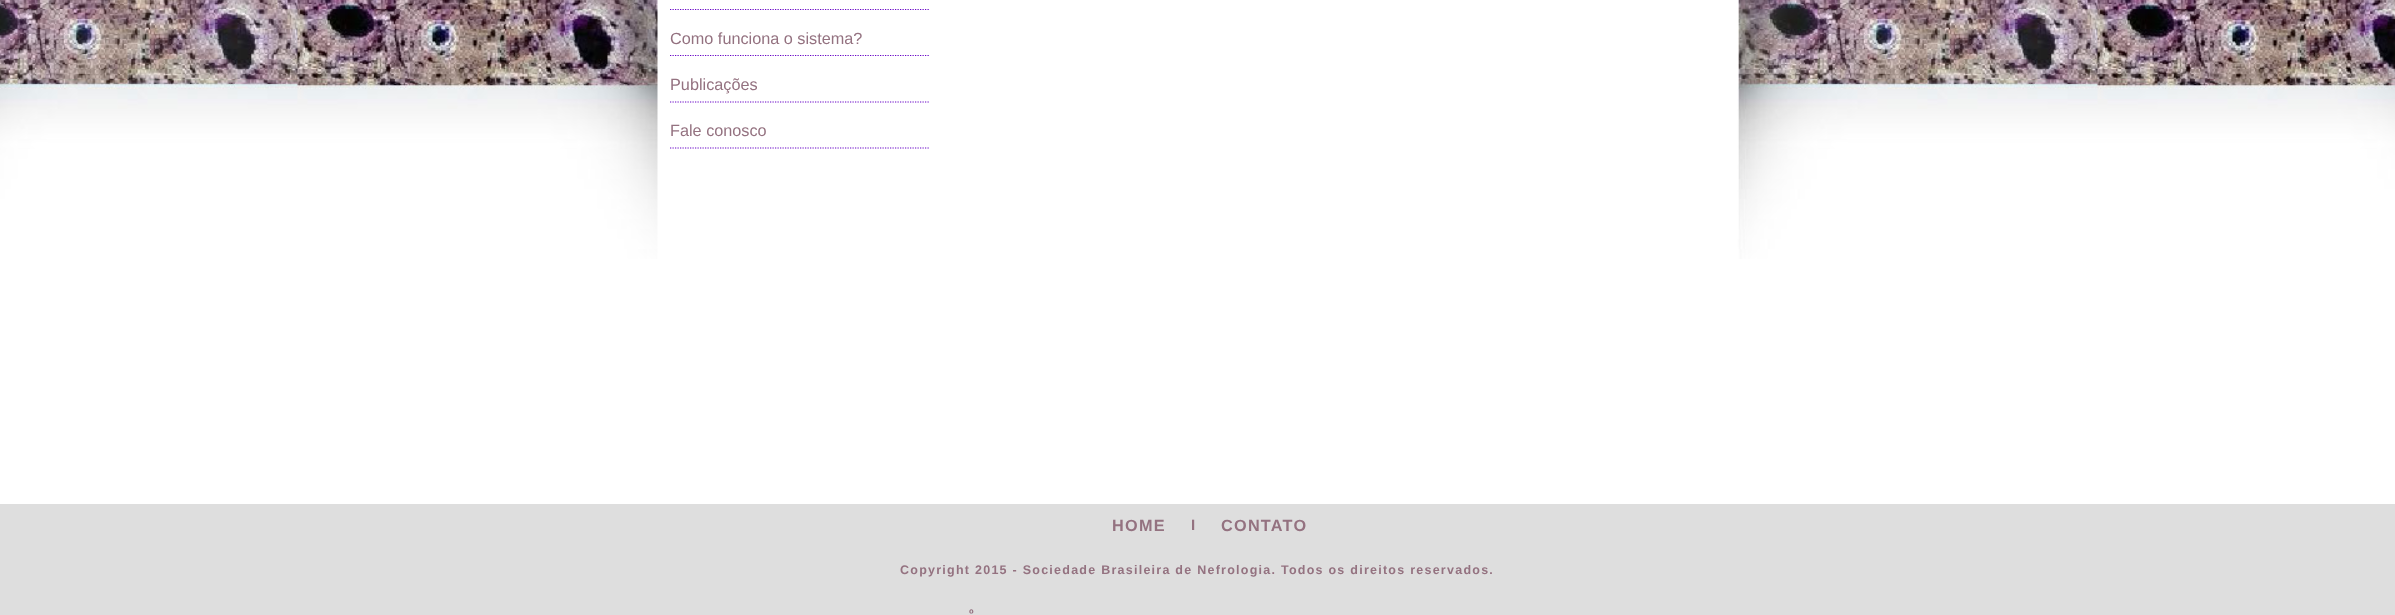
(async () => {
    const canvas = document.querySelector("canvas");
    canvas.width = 2395;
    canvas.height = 615;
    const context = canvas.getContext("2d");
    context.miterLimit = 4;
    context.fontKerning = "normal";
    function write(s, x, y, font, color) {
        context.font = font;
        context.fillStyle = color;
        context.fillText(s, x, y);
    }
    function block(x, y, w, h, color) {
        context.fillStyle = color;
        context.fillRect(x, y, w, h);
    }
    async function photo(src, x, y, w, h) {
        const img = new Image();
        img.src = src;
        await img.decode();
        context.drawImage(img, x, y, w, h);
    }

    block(0, 0, 2395, 615, "rgb(255, 255, 255)");
    await photo("media/1.png", 0, 0, 2395, 259);
    context.beginPath();
    context.moveTo(670, 9.5);
    context.lineTo(929, 9.5);
    context.strokeStyle = "rgb(104, 7, 198)";
    context.lineWidth = 1.2;
    context.setLineDash([1.25, 1.25]);
    context.stroke();
    context.beginPath();
    context.moveTo(670, 55.5);
    context.lineTo(929, 55.5);
    context.stroke();
    write("Como funciona o sistema?", 670, 44, "16.25px Liberation Sans", "rgb(148, 114, 128)");
    context.beginPath();
    context.moveTo(670, 102);
    context.lineTo(929, 102);
    context.stroke();
    write("Publicações", 670, 90, "16.25px Liberation Sans", "rgb(148, 114, 128)");
    context.beginPath();
    context.moveTo(670, 148);
    context.lineTo(929, 148);
    context.stroke();
    write("Fale conosco", 670, 136, "16.25px Liberation Sans", "rgb(148, 114, 128)");
    block(1737, 0, 1, 89, "rgb(255, 255, 255)");
    block(0, 504, 2395, 111, "rgb(222, 222, 222)");
    context.letterSpacing = "1.25px";
    write("HOME", 1112, 531, "bold 16.25px Liberation Sans", "rgb(148, 114, 128)");
    write("I", 1191, 530, "bold 15px Liberation Sans", "rgb(148, 114, 128)");
    write("CONTATO", 1221, 531, "bold 16.25px Liberation Sans", "rgb(148, 114, 128)");
    write("Copyright 2015 - Sociedade Brasileira de Nefrologia. Todos os direitos reservados.", 900, 574, "bold 12.5px Liberation Sans", "rgb(148, 114, 128)");
    write("º", 969, 618, "bold 12.5px Liberation Sans", "rgb(148, 114, 128)");
})();
